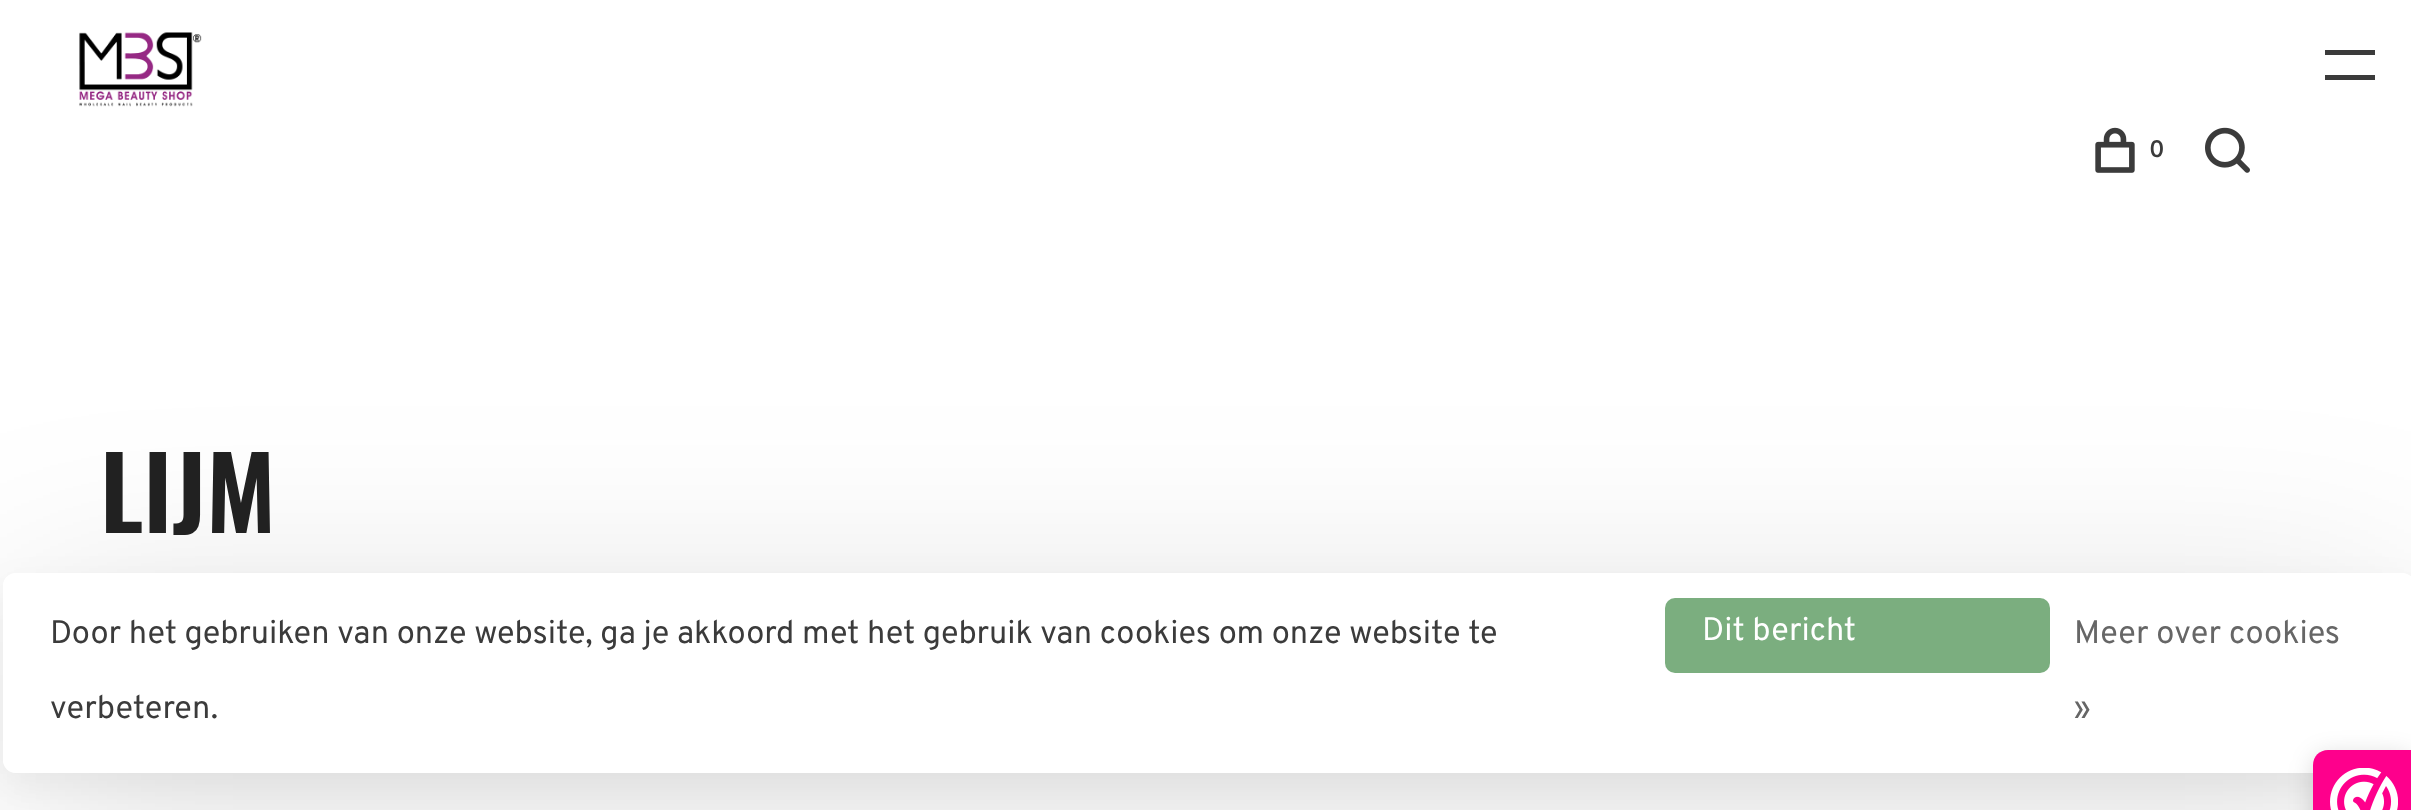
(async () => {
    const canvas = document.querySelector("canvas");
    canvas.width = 2411;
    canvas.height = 810;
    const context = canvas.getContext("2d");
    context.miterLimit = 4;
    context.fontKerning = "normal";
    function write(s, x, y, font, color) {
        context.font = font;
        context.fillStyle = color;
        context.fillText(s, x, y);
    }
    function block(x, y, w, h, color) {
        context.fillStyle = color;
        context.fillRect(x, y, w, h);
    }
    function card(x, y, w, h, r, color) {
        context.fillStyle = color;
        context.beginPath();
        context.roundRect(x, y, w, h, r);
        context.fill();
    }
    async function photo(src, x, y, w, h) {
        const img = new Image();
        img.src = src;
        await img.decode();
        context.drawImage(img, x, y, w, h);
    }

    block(0, 0, 2411, 810, "rgb(255, 255, 255)");
    await photo("media/1.png", 79, 32, 123, 75);
    block(2325, 50, 50, 5, "rgb(59, 59, 59)");
    block(2325, 75, 50, 5, "rgb(59, 59, 59)");
    await photo("media/2.png", 2095, 127, 40, 46);
    write("0", 2149, 157, "600 24px Overpass", "rgb(59, 59, 59)");
    await photo("media/3.png", 2205, 127, 45, 46);
    write("LIJM", 100, 533, "600 100px Oswald", "rgb(34, 34, 34)");
    context.fillStyle = "rgba(0, 0, 0, 0.05)";
    context.filter = "blur(19px)";
    context.beginPath();
    context.roundRect(3, 588, 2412, 200, 13);
    context.fill();
    context.filter = "none";
    context.save();
    context.beginPath();
    context.moveTo(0, 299);
    context.lineTo(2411, 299);
    context.lineTo(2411, 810);
    context.lineTo(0, 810);
    context.closePath();
    context.moveTo(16, 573);
    context.lineTo(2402, 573);
    context.bezierCurveTo(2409, 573, 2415, 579, 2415, 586);
    context.lineTo(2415, 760);
    context.bezierCurveTo(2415, 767, 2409, 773, 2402, 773);
    context.lineTo(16, 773);
    context.bezierCurveTo(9, 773, 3, 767, 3, 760);
    context.lineTo(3, 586);
    context.bezierCurveTo(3, 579, 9, 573, 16, 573);
    context.closePath();
    context.clip("evenodd");
    context.fillStyle = "rgba(0, 0, 0, 0.15)";
    context.filter = "blur(107.5px)";
    context.beginPath();
    context.rect(18, 623, 2382, 170);
    context.fill();
    context.filter = "none";
    context.restore();
    card(3, 573, 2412, 200, 13, "rgb(255, 255, 255)");
    write("Door het gebruiken van onze website, ga je akkoord met het gebruik van cookies om onze website te", 50, 643, "32.5px Overpass", "rgb(59, 59, 59)");
    card(1665, 598, 385, 75, 10, "rgb(123, 174, 127)");
    write("Dit bericht", 1702, 640, "32.5px Overpass", "rgb(255, 255, 255)");
    write("Meer over cookies", 2074, 643, "32.5px Overpass", "rgb(102, 102, 102)");
    write("»", 2074, 718, "32.5px Overpass", "rgb(102, 102, 102)");
    write("verbeteren.", 50, 718, "32.5px Overpass", "rgb(59, 59, 59)");
    context.fillStyle = "rgba(0, 0, 0, 0.15)";
    context.filter = "blur(12.5px)";
    context.beginPath();
    context.roundRect(2313, 755, 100, 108, 15);
    context.fill();
    context.filter = "none";
    context.fillStyle = "rgb(254, 0, 140)";
    context.beginPath();
    context.moveTo(2328, 750);
    context.lineTo(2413, 750);
    context.lineTo(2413, 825);
    context.lineTo(2328, 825);
    context.bezierCurveTo(2319.5, 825, 2313, 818.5, 2313, 810);
    context.lineTo(2313, 765);
    context.bezierCurveTo(2313, 756.5, 2319.5, 750, 2328, 750);
    context.closePath();
    context.fill();
    await photo("media/4.png", 2330, 768, 68, 42);
})();
